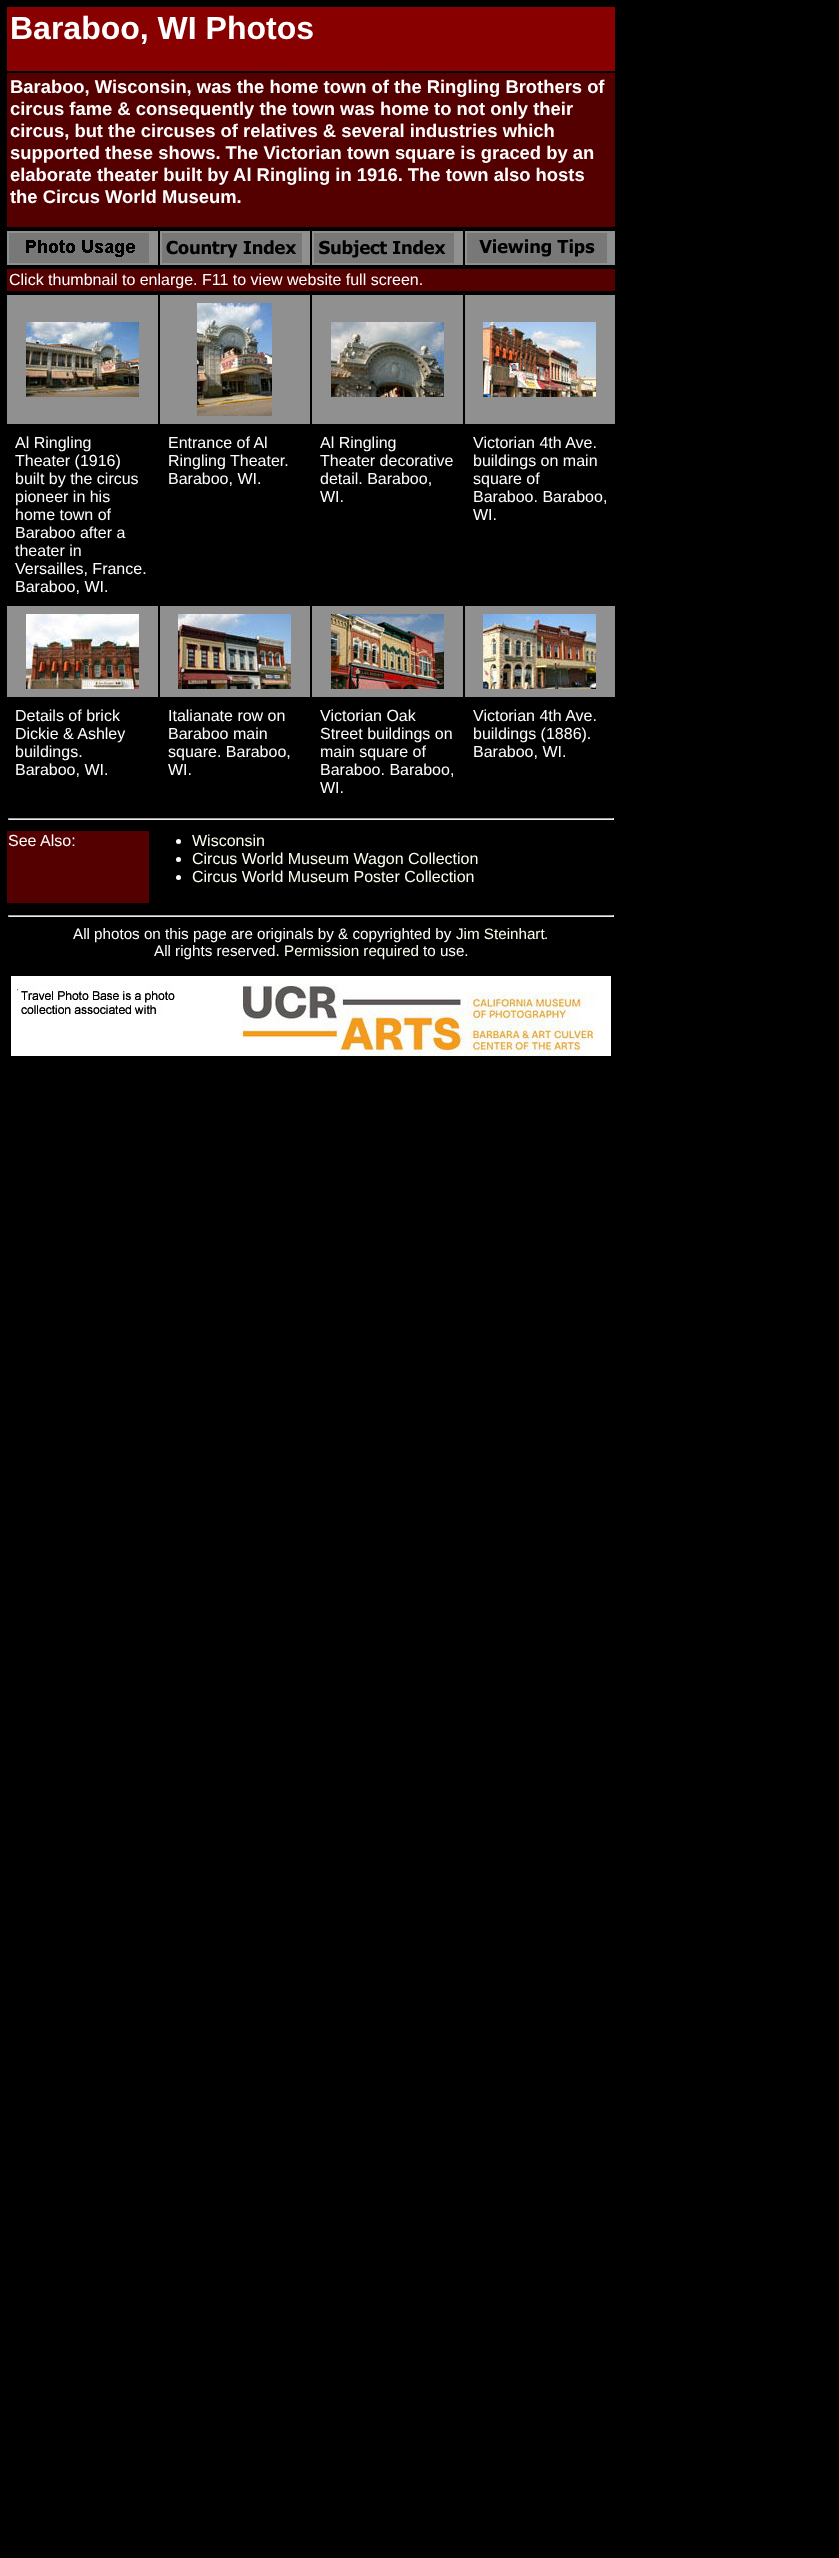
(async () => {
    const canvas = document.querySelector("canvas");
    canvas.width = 839;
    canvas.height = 2558;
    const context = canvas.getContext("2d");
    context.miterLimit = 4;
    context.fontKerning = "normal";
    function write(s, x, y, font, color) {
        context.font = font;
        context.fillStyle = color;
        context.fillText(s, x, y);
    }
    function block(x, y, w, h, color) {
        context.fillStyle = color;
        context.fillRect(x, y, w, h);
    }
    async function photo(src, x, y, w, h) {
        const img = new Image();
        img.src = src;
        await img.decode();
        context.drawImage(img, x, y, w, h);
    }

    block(0, 0, 839, 2558, "rgb(0, 0, 0)");
    block(7, 7, 608, 64, "rgb(136, 0, 0)");
    write("Baraboo, WI Photos", 10, 39, "bold 32px Liberation Sans", "rgb(255, 255, 255)");
    block(7, 73, 608, 154, "rgb(85, 0, 0)");
    write("Baraboo, Wisconsin, was the home town of the Ringling Brothers of", 10, 93, "bold 18.4px Liberation Sans", "rgb(255, 255, 255)");
    write("circus fame & consequently the town was home to not only their", 10, 115, "bold 18.4px Liberation Sans", "rgb(255, 255, 255)");
    write("circus, but the circuses of relatives & several industries which", 10, 137, "bold 18.4px Liberation Sans", "rgb(255, 255, 255)");
    write("supported these shows. The Victorian town square is graced by an", 10, 159, "bold 18.4px Liberation Sans", "rgb(255, 255, 255)");
    write("elaborate theater built by Al Ringling in 1916. The town also hosts", 10, 181, "bold 18.4px Liberation Sans", "rgb(255, 255, 255)");
    write("the Circus World Museum.", 10, 203, "bold 18.4px Liberation Sans", "rgb(255, 255, 255)");
    block(7, 231, 608, 34, "rgb(144, 144, 144)");
    await photo("media/1.png", 9, 233, 140, 30);
    block(158, 229, 2, 38, "rgb(0, 0, 0)");
    await photo("media/2.png", 162, 233, 140, 30);
    block(310, 229, 2, 38, "rgb(0, 0, 0)");
    await photo("media/3.png", 314, 233, 140, 30);
    block(463, 229, 2, 38, "rgb(0, 0, 0)");
    await photo("media/4.png", 467, 233, 140, 30);
    block(7, 269, 608, 22, "rgb(85, 0, 0)");
    write("Click thumbnail to enlarge. F11 to view website full screen.", 9, 285, "16px Liberation Sans", "rgb(255, 255, 255)");
    block(7, 295, 608, 402, "rgb(144, 144, 144)");
    await photo("media/5.png", 26, 322, 113, 75);
    block(5, 424, 612, 2, "rgb(0, 0, 0)");
    block(158, 293, 2, 133, "rgb(0, 0, 0)");
    await photo("media/6.png", 197, 303, 75, 113);
    block(310, 293, 2, 133, "rgb(0, 0, 0)");
    await photo("media/7.png", 331, 322, 113, 75);
    block(463, 293, 2, 133, "rgb(0, 0, 0)");
    await photo("media/8.png", 483, 322, 113, 75);
    block(7, 426, 608, 178, "rgb(0, 0, 0)");
    write("Al Ringling", 15, 448, "16px Liberation Sans", "rgb(255, 255, 255)");
    write("Theater (1916)", 15, 466, "16px Liberation Sans", "rgb(255, 255, 255)");
    write("built by the circus", 15, 484, "16px Liberation Sans", "rgb(255, 255, 255)");
    write("pioneer in his", 15, 502, "16px Liberation Sans", "rgb(255, 255, 255)");
    write("home town of", 15, 520, "16px Liberation Sans", "rgb(255, 255, 255)");
    write("Baraboo after a", 15, 538, "16px Liberation Sans", "rgb(255, 255, 255)");
    write("theater in", 15, 556, "16px Liberation Sans", "rgb(255, 255, 255)");
    write("Versailles, France.", 15, 574, "16px Liberation Sans", "rgb(255, 255, 255)");
    write("Baraboo, WI.", 15, 592, "16px Liberation Sans", "rgb(255, 255, 255)");
    write("Entrance of Al", 168, 448, "16px Liberation Sans", "rgb(255, 255, 255)");
    write("Ringling Theater.", 168, 466, "16px Liberation Sans", "rgb(255, 255, 255)");
    write("Baraboo, WI.", 168, 484, "16px Liberation Sans", "rgb(255, 255, 255)");
    write("Al Ringling", 320, 448, "16px Liberation Sans", "rgb(255, 255, 255)");
    write("Theater decorative", 320, 466, "16px Liberation Sans", "rgb(255, 255, 255)");
    write("detail. Baraboo,", 320, 484, "16px Liberation Sans", "rgb(255, 255, 255)");
    write("WI.", 320, 502, "16px Liberation Sans", "rgb(255, 255, 255)");
    write("Victorian 4th Ave.", 473, 448, "16px Liberation Sans", "rgb(255, 255, 255)");
    write("buildings on main", 473, 466, "16px Liberation Sans", "rgb(255, 255, 255)");
    write("square of", 473, 484, "16px Liberation Sans", "rgb(255, 255, 255)");
    write("Baraboo. Baraboo,", 473, 502, "16px Liberation Sans", "rgb(255, 255, 255)");
    write("WI.", 473, 520, "16px Liberation Sans", "rgb(255, 255, 255)");
    block(463, 604, 154, 2, "rgb(0, 0, 0)");
    block(463, 604, 2, 95, "rgb(0, 0, 0)");
    block(310, 604, 155, 2, "rgb(0, 0, 0)");
    block(310, 604, 2, 95, "rgb(0, 0, 0)");
    block(158, 604, 154, 2, "rgb(0, 0, 0)");
    block(158, 604, 2, 95, "rgb(0, 0, 0)");
    block(5, 604, 155, 2, "rgb(0, 0, 0)");
    await photo("media/9.png", 26, 614, 113, 75);
    await photo("media/10.png", 178, 614, 113, 75);
    await photo("media/11.png", 331, 614, 113, 75);
    await photo("media/12.png", 483, 614, 113, 75);
    write("Details of brick", 15, 721, "16px Liberation Sans", "rgb(255, 255, 255)");
    write("Dickie & Ashley", 15, 739, "16px Liberation Sans", "rgb(255, 255, 255)");
    write("buildings.", 15, 757, "16px Liberation Sans", "rgb(255, 255, 255)");
    write("Baraboo, WI.", 15, 775, "16px Liberation Sans", "rgb(255, 255, 255)");
    write("Italianate row on", 168, 721, "16px Liberation Sans", "rgb(255, 255, 255)");
    write("Baraboo main", 168, 739, "16px Liberation Sans", "rgb(255, 255, 255)");
    write("square. Baraboo,", 168, 757, "16px Liberation Sans", "rgb(255, 255, 255)");
    write("WI.", 168, 775, "16px Liberation Sans", "rgb(255, 255, 255)");
    write("Victorian Oak", 320, 721, "16px Liberation Sans", "rgb(255, 255, 255)");
    write("Street buildings on", 320, 739, "16px Liberation Sans", "rgb(255, 255, 255)");
    write("main square of", 320, 757, "16px Liberation Sans", "rgb(255, 255, 255)");
    write("Baraboo. Baraboo,", 320, 775, "16px Liberation Sans", "rgb(255, 255, 255)");
    write("WI.", 320, 793, "16px Liberation Sans", "rgb(255, 255, 255)");
    write("Victorian 4th Ave.", 473, 721, "16px Liberation Sans", "rgb(255, 255, 255)");
    write("buildings (1886).", 473, 739, "16px Liberation Sans", "rgb(255, 255, 255)");
    write("Baraboo, WI.", 473, 757, "16px Liberation Sans", "rgb(255, 255, 255)");
    block(8, 818, 606, 1, "rgb(159, 159, 159)");
    block(613, 818, 1, 2, "rgb(238, 238, 238)");
    block(8, 819, 606, 1, "rgb(238, 238, 238)");
    block(8, 818, 1, 2, "rgb(159, 159, 159)");
    block(7, 831, 142, 72, "rgb(85, 0, 0)");
    write("See Also:", 8, 846, "16px Liberation Sans", "rgb(255, 255, 255)");
    context.beginPath();
    context.arc(178.5, 841.5, 2.5, 0, Math.PI * 2);
    context.fill();
    write("Wisconsin", 192, 846, "16px Liberation Sans", "rgb(255, 255, 238)");
    context.fillStyle = "rgb(255, 255, 255)";
    context.beginPath();
    context.arc(178.5, 859.5, 2.5, 0, Math.PI * 2);
    context.fill();
    write("Circus World Museum Wagon Collection", 192, 864, "16px Liberation Sans", "rgb(255, 255, 238)");
    context.fillStyle = "rgb(255, 255, 255)";
    context.beginPath();
    context.arc(178.5, 877.5, 2.5, 0, Math.PI * 2);
    context.fill();
    write("Circus World Museum Poster Collection", 192, 882, "16px Liberation Sans", "rgb(255, 255, 238)");
    block(8, 915, 606, 1, "rgb(159, 159, 159)");
    block(613, 915, 1, 2, "rgb(238, 238, 238)");
    block(8, 916, 606, 1, "rgb(238, 238, 238)");
    block(8, 915, 1, 2, "rgb(159, 159, 159)");
    write("All photos on this page are originals by & copyrighted by", 73, 939, "15.2px Liberation Sans", "rgb(255, 255, 255)");
    write("Jim Steinhart", 456, 939, "15.2px Liberation Sans", "rgb(255, 255, 238)");
    write(".", 544, 939, "15.2px Liberation Sans", "rgb(255, 255, 255)");
    write("All rights reserved.", 154, 956, "15.2px Liberation Sans", "rgb(255, 255, 255)");
    write("Permission required", 284, 956, "15.2px Liberation Sans", "rgb(255, 255, 238)");
    write("to use.", 423, 956, "15.2px Liberation Sans", "rgb(255, 255, 255)");
    await photo("media/13.png", 11, 976, 600, 80);
})();
